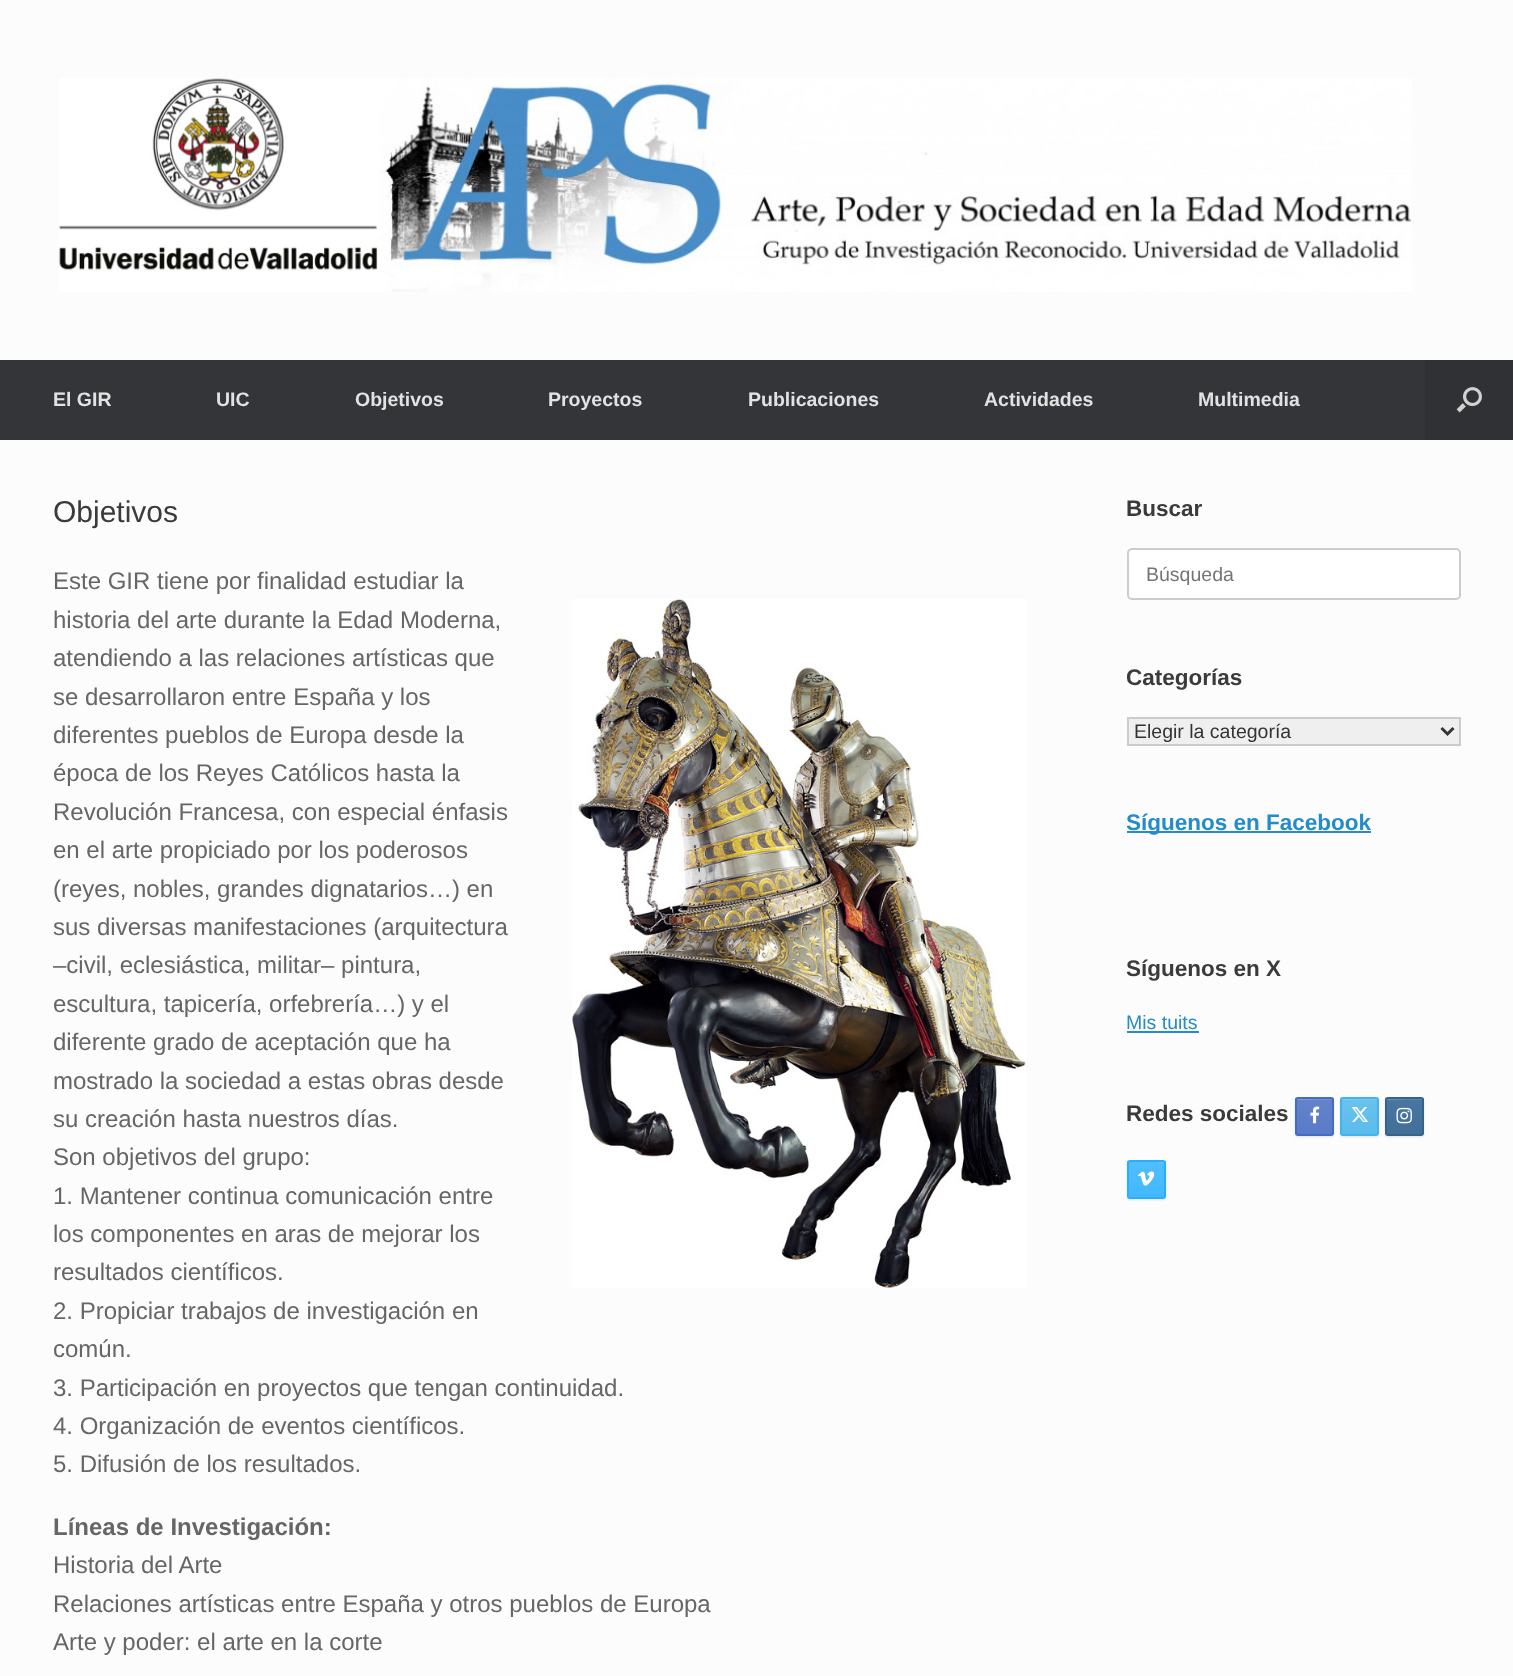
(async () => {
    const canvas = document.querySelector("canvas");
    canvas.width = 1513;
    canvas.height = 1676;
    const context = canvas.getContext("2d");
    context.miterLimit = 4;
    context.fontKerning = "normal";
    function write(s, x, y, font, color) {
        context.font = font;
        context.fillStyle = color;
        context.fillText(s, x, y);
    }
    function block(x, y, w, h, color) {
        context.fillStyle = color;
        context.fillRect(x, y, w, h);
    }
    async function photo(src, x, y, w, h) {
        const img = new Image();
        img.src = src;
        await img.decode();
        context.drawImage(img, x, y, w, h);
    }
    let gradient;

    block(0, 0, 1513, 1676, "rgb(252, 252, 252)");
    await photo("media/1.png", 59, 78, 1353, 214);
    block(0, 360, 1425, 80, "rgb(52, 53, 56)");
    write("El GIR", 53, 406, "bold 19.5px Liberation Sans", "rgb(226, 226, 226)");
    write("UIC", 216, 406, "bold 19.5px Liberation Sans", "rgb(226, 226, 226)");
    write("Objetivos", 355, 406, "bold 19.5px Liberation Sans", "rgb(226, 226, 226)");
    write("Proyectos", 548, 406, "bold 19.5px Liberation Sans", "rgb(226, 226, 226)");
    write("Publicaciones", 748, 406, "bold 19.5px Liberation Sans", "rgb(226, 226, 226)");
    write("Actividades", 984, 406, "bold 19.5px Liberation Sans", "rgb(226, 226, 226)");
    write("Multimedia", 1198, 406, "bold 19.5px Liberation Sans", "rgb(226, 226, 226)");
    block(1425, 360, 88, 80, "rgb(48, 49, 52)");
    await photo("media/2.png", 1456, 387, 26, 26);
    write("Objetivos", 53, 522, "30px Liberation Sans", "rgb(59, 59, 59)");
    write("Este GIR tiene por finalidad estudiar la", 53, 589, "24px Liberation Sans", "rgb(102, 102, 102)");
    write("historia del arte durante la Edad Moderna,", 53, 628, "24px Liberation Sans", "rgb(102, 102, 102)");
    await photo("media/3.png", 572, 599, 454, 689);
    write("atendiendo a las relaciones artísticas que", 53, 666, "24px Liberation Sans", "rgb(102, 102, 102)");
    write("se desarrollaron entre España y los", 53, 705, "24px Liberation Sans", "rgb(102, 102, 102)");
    write("diferentes pueblos de Europa desde la", 53, 743, "24px Liberation Sans", "rgb(102, 102, 102)");
    write("época de los Reyes Católicos hasta la", 53, 781, "24px Liberation Sans", "rgb(102, 102, 102)");
    write("Revolución Francesa, con especial énfasis", 53, 820, "24px Liberation Sans", "rgb(102, 102, 102)");
    write("en el arte propiciado por los poderosos", 53, 858, "24px Liberation Sans", "rgb(102, 102, 102)");
    write("(reyes, nobles, grandes dignatarios…) en", 53, 897, "24px Liberation Sans", "rgb(102, 102, 102)");
    write("sus diversas manifestaciones (arquitectura", 53, 935, "24px Liberation Sans", "rgb(102, 102, 102)");
    write("–civil, eclesiástica, militar– pintura,", 53, 973, "24px Liberation Sans", "rgb(102, 102, 102)");
    write("escultura, tapicería, orfebrería…) y el", 53, 1012, "24px Liberation Sans", "rgb(102, 102, 102)");
    write("diferente grado de aceptación que ha", 53, 1050, "24px Liberation Sans", "rgb(102, 102, 102)");
    write("mostrado la sociedad a estas obras desde", 53, 1089, "24px Liberation Sans", "rgb(102, 102, 102)");
    write("su creación hasta nuestros días.", 53, 1127, "24px Liberation Sans", "rgb(102, 102, 102)");
    write("Son objetivos del grupo:", 53, 1165, "24px Liberation Sans", "rgb(102, 102, 102)");
    write("1. Mantener continua comunicación entre", 53, 1204, "24px Liberation Sans", "rgb(102, 102, 102)");
    write("los componentes en aras de mejorar los", 53, 1242, "24px Liberation Sans", "rgb(102, 102, 102)");
    write("resultados científicos.", 53, 1280, "24px Liberation Sans", "rgb(102, 102, 102)");
    write("2. Propiciar trabajos de investigación en", 53, 1319, "24px Liberation Sans", "rgb(102, 102, 102)");
    write("común.", 53, 1357, "24px Liberation Sans", "rgb(102, 102, 102)");
    write("3. Participación en proyectos que tengan continuidad.", 53, 1396, "24px Liberation Sans", "rgb(102, 102, 102)");
    write("4. Organización de eventos científicos.", 53, 1434, "24px Liberation Sans", "rgb(102, 102, 102)");
    write("5. Difusión de los resultados.", 53, 1472, "24px Liberation Sans", "rgb(102, 102, 102)");
    write("Líneas de Investigación:", 53, 1535, "bold 24px Liberation Sans", "rgb(102, 102, 102)");
    write("Historia del Arte", 53, 1573, "24px Liberation Sans", "rgb(102, 102, 102)");
    write("Relaciones artísticas entre España y otros pueblos de Europa", 53, 1612, "24px Liberation Sans", "rgb(102, 102, 102)");
    write("Arte y poder: el arte en la corte", 53, 1650, "24px Liberation Sans", "rgb(102, 102, 102)");
    write("Buscar", 1126, 516, "bold 22.5px Liberation Sans", "rgb(59, 59, 59)");
    context.fillStyle = "rgb(255, 255, 255)";
    context.beginPath();
    context.roundRect(1128, 549, 332, 50, 4);
    context.fill();
    context.strokeStyle = "rgb(204, 204, 204)";
    context.lineWidth = 2;
    context.stroke();
    write("Búsqueda", 1146, 581, "19.5px Liberation Sans", "rgb(117, 117, 117)");
    write("Categorías", 1126, 685, "bold 22.5px Liberation Sans", "rgb(59, 59, 59)");
    context.fillStyle = "rgb(239, 239, 239)";
    context.beginPath();
    context.rect(1128, 718, 332, 27);
    context.fill();
    context.stroke();
    context.beginPath();
    context.moveTo(1441.5, 728);
    context.lineTo(1447.5, 734);
    context.lineTo(1453.5, 728);
    context.strokeStyle = "rgb(51, 51, 51)";
    context.lineWidth = 3;
    context.stroke();
    write("Elegir la categoría", 1134, 738, "19.5px Liberation Sans", "rgb(51, 51, 51)");
    block(1127, 831, 244, 2, "rgb(36, 140, 200)");
    write("Síguenos en Facebook", 1126, 830, "bold 22.5px Liberation Sans", "rgb(36, 140, 200)");
    write("Síguenos en X", 1126, 976, "bold 22.5px Liberation Sans", "rgb(59, 59, 59)");
    write("Mis tuits", 1126, 1029, "19.5px Liberation Sans", "rgb(36, 140, 200)");
    block(1127, 1031, 72, 2, "rgb(36, 140, 200)");
    write("Redes sociales", 1126, 1121, "bold 22.5px Liberation Sans", "rgb(59, 59, 59)");
    context.fillStyle = "rgba(0, 0, 0, 0.1)";
    context.filter = "blur(1px)";
    context.beginPath();
    context.roundRect(1295, 1098, 39, 39, 3);
    context.fill();
    context.filter = "none";
    context.save();
    context.beginPath();
    context.roundRect(1295, 1097, 39, 39, 3);
    context.clip();
    gradient = context.createLinearGradient(1314, 1134, 1314, 1098);
    gradient.addColorStop(0, "rgb(89, 122, 199)");
    gradient.addColorStop(1, "rgb(100, 131, 203)");
    context.fillStyle = gradient;
    context.fillRect(1295, 1098, 39, 36);
    context.restore();
    context.fillStyle = "rgb(131, 156, 213)";
    context.beginPath();
    context.moveTo(1298, 1100);
    context.bezierCurveTo(1303.5, 1100, 1331, 1099, 1332, 1100);
    context.bezierCurveTo(1332, 1096.5, 1327, 1098, 1325, 1098);
    context.lineTo(1303, 1098);
    context.bezierCurveTo(1297.5, 1098, 1296, 1096.5, 1296, 1101.5);
    context.bezierCurveTo(1296, 1100.5, 1297, 1100, 1298, 1100);
    context.closePath();
    context.fill();
    context.beginPath();
    context.roundRect(1296, 1098, 37, 37, 2);
    context.strokeStyle = "rgb(70, 107, 193)";
    context.lineWidth = 2;
    context.stroke();
    await photo("media/4.png", 1310, 1106, 10, 18);
    context.fillStyle = "rgba(0, 0, 0, 0.1)";
    context.filter = "blur(1px)";
    context.beginPath();
    context.roundRect(1340, 1098, 39, 39, 3);
    context.fill();
    context.filter = "none";
    context.save();
    context.beginPath();
    context.roundRect(1340, 1097, 39, 39, 3);
    context.clip();
    gradient = context.createLinearGradient(1359, 1134, 1359, 1098);
    gradient.addColorStop(0, "rgb(91, 188, 236)");
    gradient.addColorStop(1, "rgb(105, 194, 238)");
    context.fillStyle = gradient;
    context.fillRect(1340, 1098, 39, 36);
    context.restore();
    context.fillStyle = "rgb(135, 206, 241)";
    context.beginPath();
    context.moveTo(1342, 1100);
    context.bezierCurveTo(1348, 1100, 1376, 1099, 1377, 1100);
    context.bezierCurveTo(1377, 1096.5, 1372, 1098, 1370, 1098);
    context.lineTo(1348, 1098);
    context.bezierCurveTo(1344, 1098, 1341, 1096.5, 1341, 1100.5);
    context.closePath();
    context.fill();
    context.beginPath();
    context.roundRect(1341, 1098, 37, 37, 2);
    context.strokeStyle = "rgb(68, 179, 233)";
    context.stroke();
    await photo("media/5.png", 1351, 1107, 17, 15);
    context.fillStyle = "rgba(0, 0, 0, 0.1)";
    context.filter = "blur(1px)";
    context.beginPath();
    context.roundRect(1385, 1098, 39, 39, 3);
    context.fill();
    context.filter = "none";
    context.save();
    context.beginPath();
    context.roundRect(1385, 1097, 39, 39, 3);
    context.clip();
    gradient = context.createLinearGradient(1404, 1134, 1404, 1098);
    gradient.addColorStop(0, "rgb(66, 111, 152)");
    gradient.addColorStop(1, "rgb(71, 119, 163)");
    context.fillStyle = gradient;
    context.fillRect(1385, 1098, 39, 36);
    context.restore();
    context.fillStyle = "rgb(108, 146, 181)";
    context.beginPath();
    context.moveTo(1388, 1100);
    context.bezierCurveTo(1393.5, 1100, 1421, 1099, 1422, 1100);
    context.bezierCurveTo(1422, 1096.5, 1417, 1098, 1415, 1098);
    context.lineTo(1393, 1098);
    context.bezierCurveTo(1387.5, 1098, 1386, 1096.5, 1386, 1101.5);
    context.bezierCurveTo(1386, 1100.5, 1387, 1100, 1388, 1100);
    context.closePath();
    context.fill();
    context.beginPath();
    context.roundRect(1386, 1098, 37, 37, 2);
    context.strokeStyle = "rgb(58, 98, 134)";
    context.stroke();
    await photo("media/6.png", 1396, 1107, 16, 17);
    context.fillStyle = "rgba(0, 0, 0, 0.1)";
    context.filter = "blur(1px)";
    context.beginPath();
    context.roundRect(1127, 1161, 39, 39, 3);
    context.fill();
    context.filter = "none";
    context.save();
    context.beginPath();
    context.roundRect(1127, 1160, 39, 39, 3);
    context.clip();
    gradient = context.createLinearGradient(1146, 1197, 1146, 1161);
    gradient.addColorStop(0, "rgb(66, 184, 255)");
    gradient.addColorStop(1, "rgb(81, 190, 255)");
    context.fillStyle = gradient;
    context.fillRect(1127, 1161, 39, 36);
    context.restore();
    context.fillStyle = "rgb(124, 206, 255)";
    context.beginPath();
    context.moveTo(1130, 1162);
    context.bezierCurveTo(1133, 1162, 1163, 1162, 1164, 1163);
    context.bezierCurveTo(1164, 1159.5, 1159, 1161, 1157, 1161);
    context.lineTo(1135, 1161);
    context.bezierCurveTo(1130.5, 1161, 1128, 1159.5, 1128, 1164);
    context.bezierCurveTo(1128, 1163, 1129, 1162, 1130, 1162);
    context.closePath();
    context.fill();
    context.beginPath();
    context.roundRect(1128, 1161, 37, 37, 2);
    context.strokeStyle = "rgb(40, 174, 255)";
    context.stroke();
    await photo("media/7.png", 1137, 1171, 18, 15);
})();
